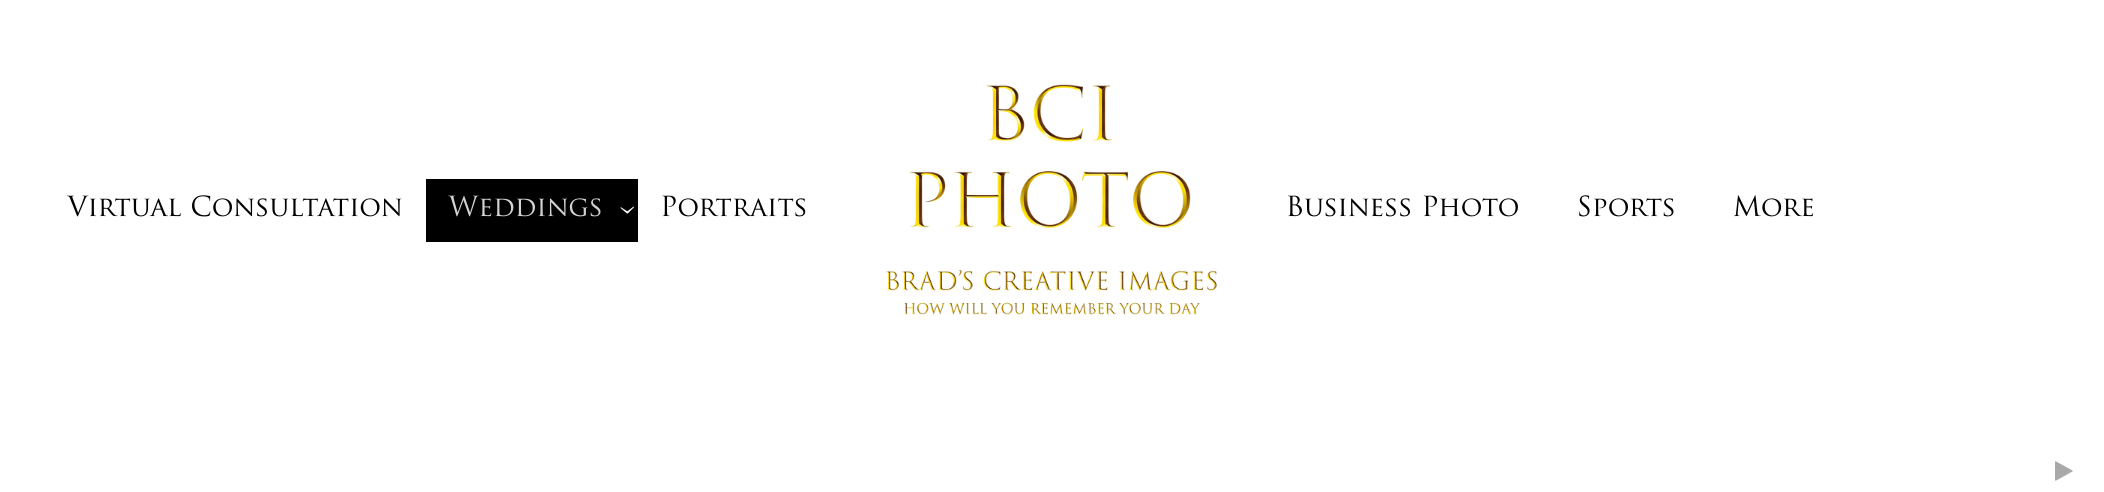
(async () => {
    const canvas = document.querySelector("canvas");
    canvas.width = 2104;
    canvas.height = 492;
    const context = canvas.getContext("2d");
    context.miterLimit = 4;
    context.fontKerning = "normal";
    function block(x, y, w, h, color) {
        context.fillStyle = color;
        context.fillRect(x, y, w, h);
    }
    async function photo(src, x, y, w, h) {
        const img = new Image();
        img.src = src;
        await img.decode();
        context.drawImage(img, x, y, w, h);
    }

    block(0, 0, 2104, 492, "rgb(255, 255, 255)");
    await photo("media/1.png", 66, 195, 336, 22);
    block(426, 179, 212, 63, "rgb(0, 0, 0)");
    await photo("media/2.png", 448, 195, 153, 22);
    await photo("media/3.png", 620, 206, 14, 8);
    await photo("media/4.png", 662, 195, 144, 22);
    await photo("media/5.png", 886, 84, 331, 231);
    await photo("media/6.png", 1288, 195, 230, 22);
    await photo("media/7.png", 1579, 195, 95, 22);
    await photo("media/8.png", 1734, 195, 80, 22);
    await photo("media/9.png", 2055, 461, 18, 20);
})();
